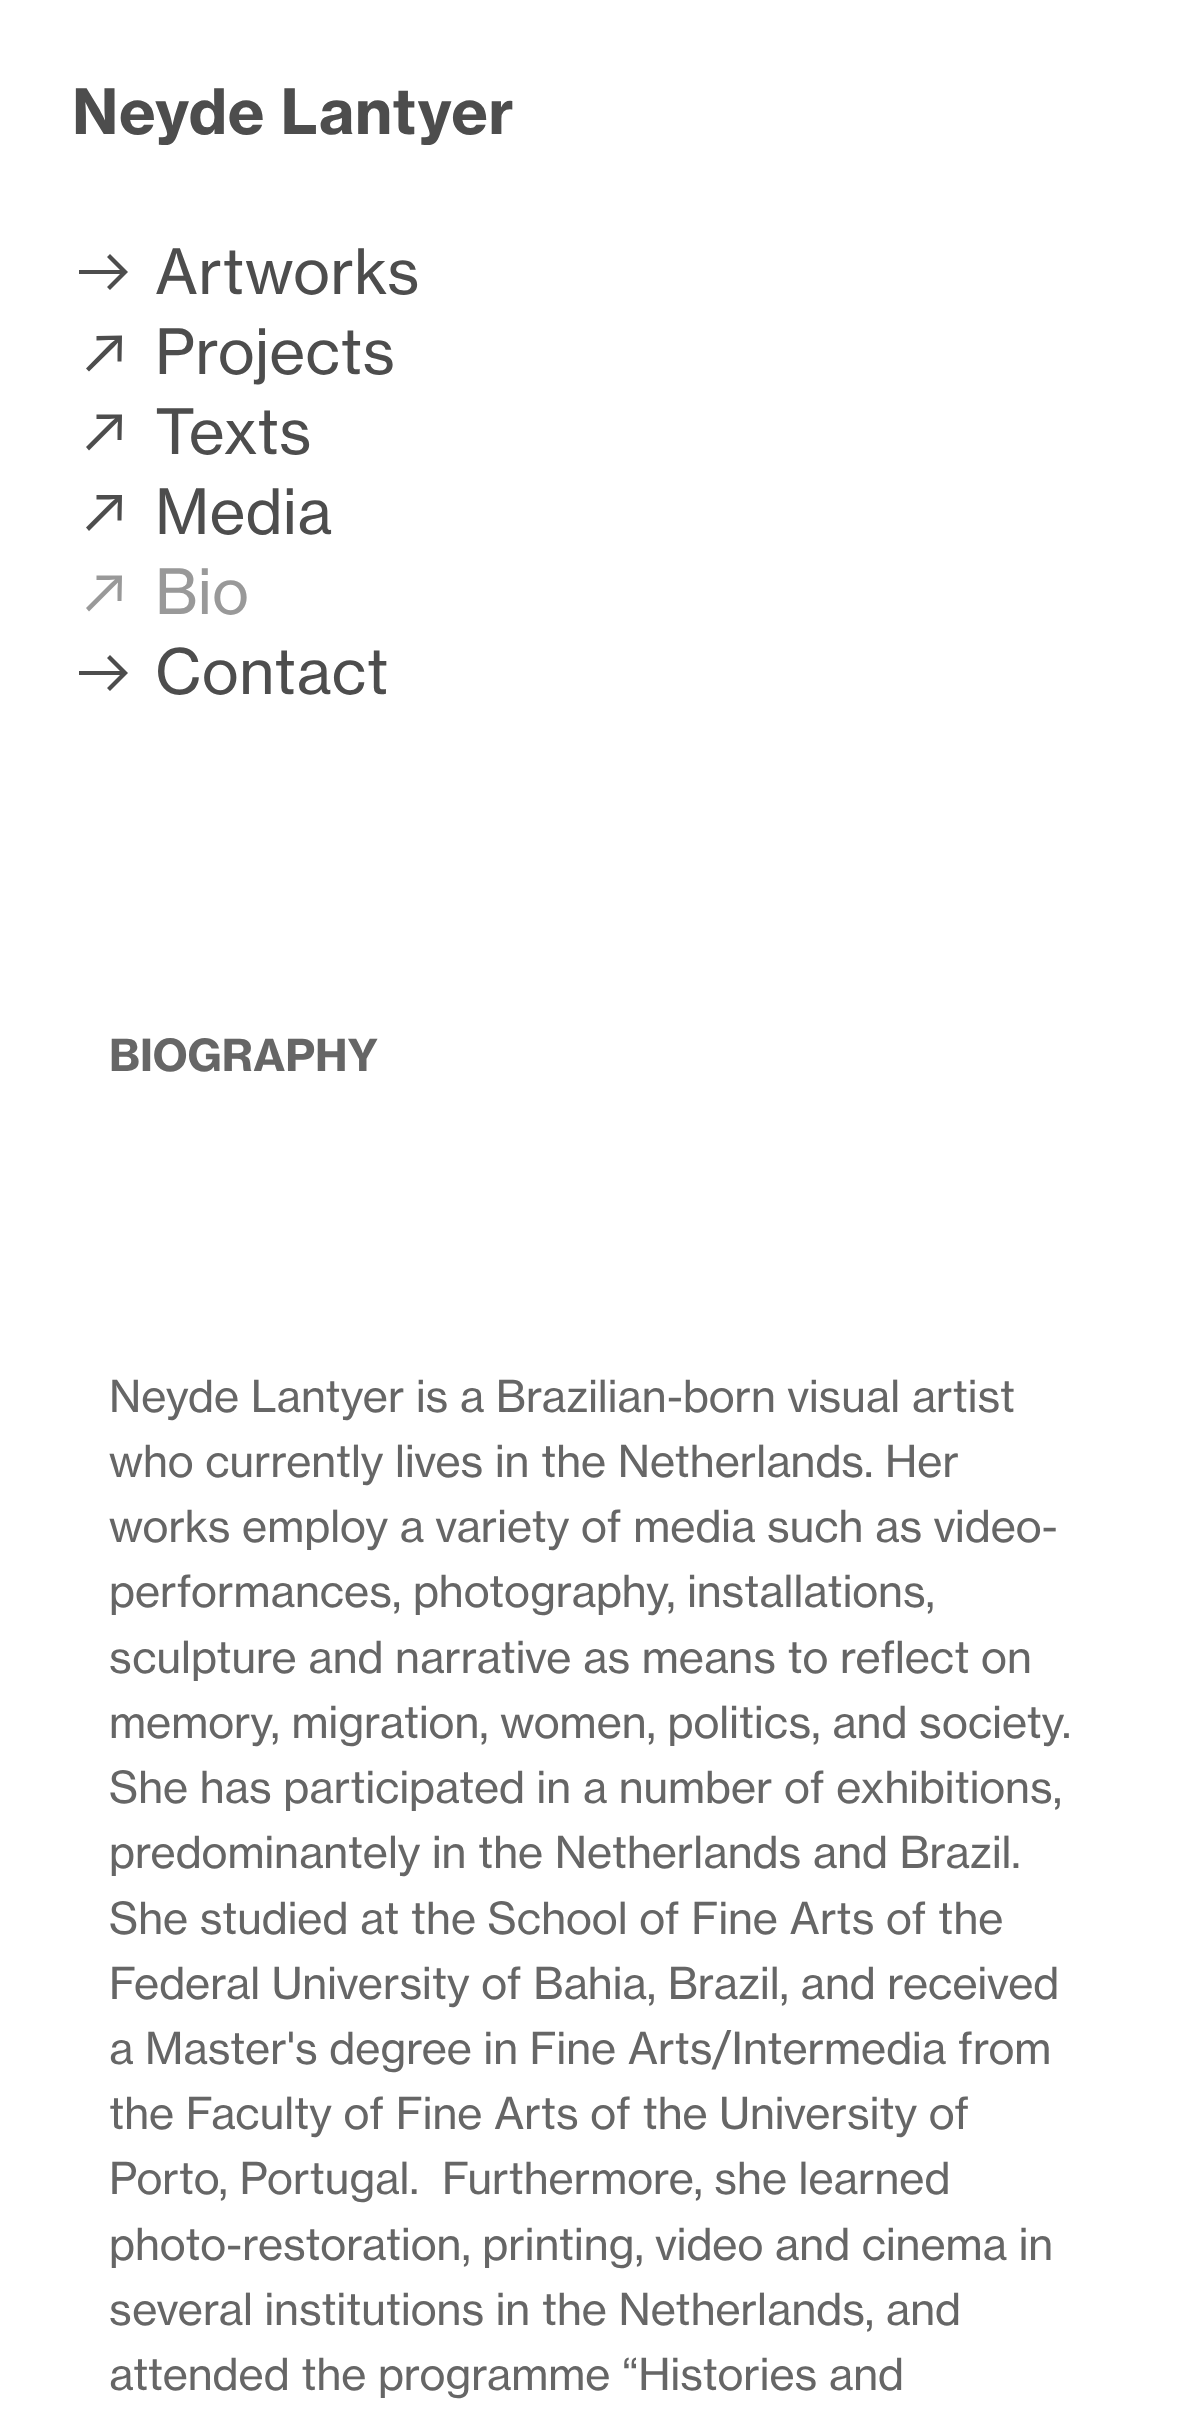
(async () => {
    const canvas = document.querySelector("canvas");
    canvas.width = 1191;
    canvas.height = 2416;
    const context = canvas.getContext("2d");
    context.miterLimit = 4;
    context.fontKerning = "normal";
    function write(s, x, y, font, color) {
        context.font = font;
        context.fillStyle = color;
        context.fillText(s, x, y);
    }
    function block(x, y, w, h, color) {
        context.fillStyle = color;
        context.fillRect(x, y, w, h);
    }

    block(0, 0, 1191, 2416, "rgb(255, 255, 255)");
    context.letterSpacing = "0.6px";
    write("Neyde Lantyer", 72, 134, "bold 61.5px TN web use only", "rgb(77, 77, 77)");
    write("Artworks", 155, 294, "61.5px TN web use only", "rgb(77, 77, 77)");
    context.beginPath();
    context.moveTo(79, 274);
    context.lineTo(120, 274);
    context.lineTo(107, 287);
    context.lineTo(110, 290);
    context.lineTo(128, 272);
    context.lineTo(110, 254);
    context.lineTo(107, 257);
    context.lineTo(120, 270);
    context.lineTo(79, 270);
    context.closePath();
    context.fill();
    write("Projects", 155, 374, "61.5px TN web use only", "rgb(77, 77, 77)");
    context.beginPath();
    context.moveTo(89, 371.5);
    context.lineTo(114, 347);
    context.lineTo(118, 342.5);
    context.lineTo(117.5, 349);
    context.lineTo(117.5, 361.5);
    context.lineTo(121.5, 361.5);
    context.lineTo(122, 335.5);
    context.lineTo(96.5, 336);
    context.lineTo(96.5, 340.5);
    context.lineTo(109, 340);
    context.lineTo(115, 340);
    context.lineTo(110.5, 343.5);
    context.lineTo(86, 368.5);
    context.closePath();
    context.fill();
    write("Texts", 155, 454, "61.5px TN web use only", "rgb(77, 77, 77)");
    context.beginPath();
    context.moveTo(89, 450.5);
    context.lineTo(114, 425.5);
    context.lineTo(118, 421.5);
    context.lineTo(117.5, 427.5);
    context.lineTo(117.5, 440);
    context.lineTo(121.5, 440);
    context.lineTo(122, 414.5);
    context.lineTo(96.5, 414.5);
    context.lineTo(96.5, 419);
    context.lineTo(109, 419);
    context.lineTo(115, 418.5);
    context.lineTo(110.5, 422.5);
    context.lineTo(86, 447);
    context.closePath();
    context.fill();
    write("Media", 155, 534, "61.5px TN web use only", "rgb(77, 77, 77)");
    context.beginPath();
    context.moveTo(89, 531);
    context.lineTo(114, 506);
    context.lineTo(118, 502);
    context.lineTo(117.5, 508);
    context.lineTo(117.5, 520.5);
    context.lineTo(121.5, 520.5);
    context.lineTo(122, 495);
    context.lineTo(96.5, 495);
    context.lineTo(96.5, 499.5);
    context.lineTo(109, 499.5);
    context.lineTo(115, 499);
    context.lineTo(110.5, 503);
    context.lineTo(86, 527.5);
    context.closePath();
    context.fill();
    write("Bio", 155, 614, "61.5px TN web use only", "rgb(153, 153, 153)");
    context.beginPath();
    context.moveTo(89, 611.5);
    context.lineTo(114, 586.5);
    context.lineTo(118, 582.5);
    context.lineTo(117.5, 588.5);
    context.lineTo(117.5, 601);
    context.lineTo(121.5, 601);
    context.lineTo(122, 575.5);
    context.lineTo(96.5, 575.5);
    context.lineTo(96.5, 580);
    context.lineTo(109, 580);
    context.lineTo(115, 579.5);
    context.lineTo(110.5, 583.5);
    context.lineTo(86, 608);
    context.closePath();
    context.fill();
    write("Contact", 155, 694, "61.5px TN web use only", "rgb(77, 77, 77)");
    context.beginPath();
    context.moveTo(79, 675);
    context.lineTo(120, 675);
    context.lineTo(107, 688);
    context.lineTo(110, 691);
    context.lineTo(128, 673);
    context.lineTo(110, 655);
    context.lineTo(107, 658);
    context.lineTo(120, 671);
    context.lineTo(79, 671);
    context.closePath();
    context.fill();
    context.letterSpacing = "0px";
    write("BIOGRAPHY", 109, 1071, "bold 43.5px TN web use only", "rgb(102, 102, 102)");
    write("Neyde Lantyer is a Brazilian-born visual artist", 109, 1412, "43.5px TN web use only", "rgb(102, 102, 102)");
    write("who currently lives in the Netherlands. Her", 109, 1477, "43.5px TN web use only", "rgb(102, 102, 102)");
    write("works employ a variety of media such as video-", 109, 1542, "43.5px TN web use only", "rgb(102, 102, 102)");
    write("performances, photography, installations,", 109, 1607, "43.5px TN web use only", "rgb(102, 102, 102)");
    write("sculpture and narrative as means to reflect on", 109, 1673, "43.5px TN web use only", "rgb(102, 102, 102)");
    write("memory, migration, women, politics, and society.", 109, 1738, "43.5px TN web use only", "rgb(102, 102, 102)");
    write("She has participated in a number of exhibitions,", 109, 1803, "43.5px TN web use only", "rgb(102, 102, 102)");
    write("predominantely in the Netherlands and Brazil.", 109, 1868, "43.5px TN web use only", "rgb(102, 102, 102)");
    write("She studied at the School of Fine Arts of the", 109, 1934, "43.5px TN web use only", "rgb(102, 102, 102)");
    write("Federal University of Bahia, Brazil, and received", 109, 1999, "43.5px TN web use only", "rgb(102, 102, 102)");
    write("a Master's degree in Fine Arts/Intermedia from", 109, 2064, "43.5px TN web use only", "rgb(102, 102, 102)");
    write("the Faculty of Fine Arts of the University of", 109, 2129, "43.5px TN web use only", "rgb(102, 102, 102)");
    write("Porto, Portugal.  Furthermore, she learned", 109, 2194, "43.5px TN web use only", "rgb(102, 102, 102)");
    write("photo-restoration, printing, video and cinema in", 109, 2260, "43.5px TN web use only", "rgb(102, 102, 102)");
    write("several institutions in the Netherlands, and", 109, 2325, "43.5px TN web use only", "rgb(102, 102, 102)");
    write("attended the programme “Histories and", 109, 2390, "43.5px TN web use only", "rgb(102, 102, 102)");
})();
